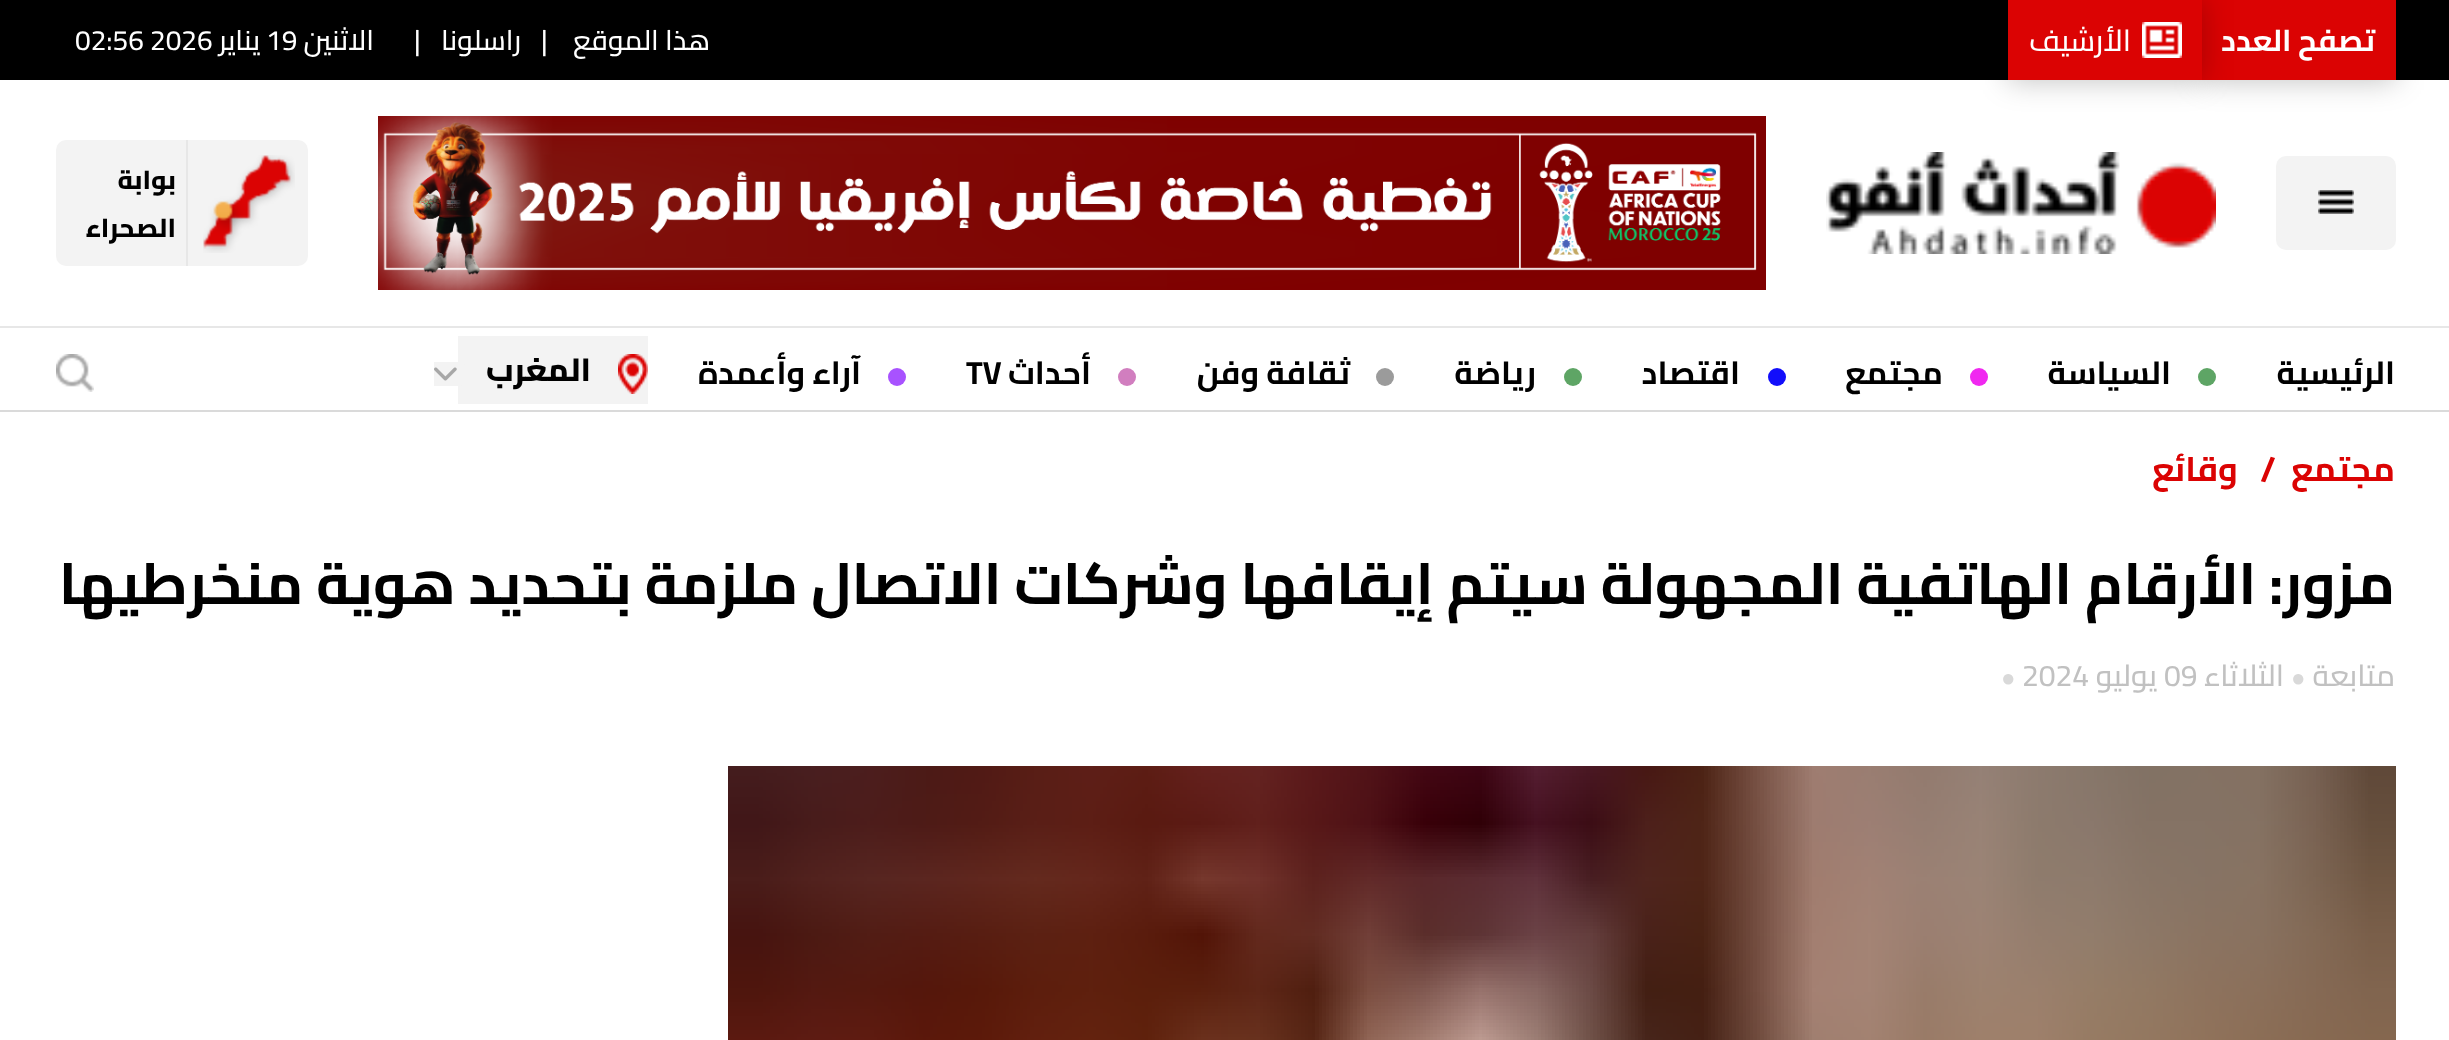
(async () => {
    const canvas = document.querySelector("canvas");
    canvas.width = 2449;
    canvas.height = 1040;
    const context = canvas.getContext("2d");
    context.miterLimit = 4;
    context.fontKerning = "normal";
    function write(s, x, y, font, color) {
        context.font = font;
        context.fillStyle = color;
        context.fillText(s, x, y);
    }
    function block(x, y, w, h, color) {
        context.fillStyle = color;
        context.fillRect(x, y, w, h);
    }
    function card(x, y, w, h, r, color) {
        context.fillStyle = color;
        context.beginPath();
        context.roundRect(x, y, w, h, r);
        context.fill();
    }
    async function photo(src, x, y, w, h) {
        const img = new Image();
        img.src = src;
        await img.decode();
        context.drawImage(img, x, y, w, h);
    }

    block(0, 0, 2449, 1040, "rgb(255, 255, 255)");
    block(0, 0, 2449, 80, "rgb(0, 0, 0)");
    context.fillStyle = "rgba(0, 0, 0, 0.25)";
    context.filter = "blur(15px)";
    context.beginPath();
    context.rect(2202, 0, 194, 80);
    context.fill();
    context.filter = "none";
    block(2202, 0, 194, 80, "rgb(219, 3, 3)");
    context.direction = "rtl";
    write("تصفح العدد", 2375, 51, "bold 30px Cairo", "rgb(255, 255, 255)");
    context.fillStyle = "rgba(0, 0, 0, 0.25)";
    context.filter = "blur(15px)";
    context.beginPath();
    context.rect(2008, 0, 194, 80);
    context.fill();
    context.filter = "none";
    block(2008, 0, 194, 80, "rgb(219, 3, 3)");
    await photo("media/1.png", 2142, 22, 40, 36);
    write("الأرشيف", 2131, 51, "500 30px Cairo", "rgb(255, 255, 255)");
    write("هذا الموقع", 710, 50, "500 28px Cairo", "rgb(255, 255, 255)");
    context.direction = "ltr";
    write("|", 541, 50, "500 28px Cairo", "rgb(255, 255, 255)");
    context.direction = "rtl";
    write("راسلونا", 521, 50, "500 28px Cairo", "rgb(255, 255, 255)");
    context.direction = "ltr";
    write("|", 414, 50, "500 28px Cairo", "rgb(255, 255, 255)");
    context.direction = "rtl";
    write("الاثنين", 374, 50, "500 28px Cairo", "rgb(255, 255, 255)");
    context.direction = "ltr";
    write("19", 266, 50, "500 28px Cairo", "rgb(255, 255, 255)");
    context.direction = "rtl";
    write("يناير", 260, 50, "500 28px Cairo", "rgb(255, 255, 255)");
    context.direction = "ltr";
    write("02:56 2026", 75, 50, "500 28px Cairo", "rgb(255, 255, 255)");
    block(0, 326, 2449, 2, "rgb(231, 231, 231)");
    card(2276, 156, 120, 94, 10, "rgb(243, 243, 243)");
    await photo("media/2.png", 2318, 190, 36, 24);
    await photo("media/3.png", 1826, 152, 390, 102);
    await photo("media/4.png", 378, 116, 1388, 174);
    card(56, 140, 252, 126, 10, "rgb(243, 243, 243)");
    block(186, 140, 2, 126, "rgb(231, 231, 231)");
    await photo("media/5.png", 203, 155, 92, 98);
    context.direction = "rtl";
    write("بوابة", 176, 189, "800 26px Cairo", "rgb(0, 0, 0)");
    write("الصحراء", 176, 237, "800 26px Cairo", "rgb(0, 0, 0)");
    block(0, 410, 2449, 2, "rgb(218, 218, 218)");
    write("الرئيسية", 2395, 384, "bold 32px Cairo", "rgb(0, 0, 0)");
    context.fillStyle = "rgb(94, 165, 101)";
    context.beginPath();
    context.arc(2207, 377, 9, 0, Math.PI * 2);
    context.fill();
    write("السياسة", 2171, 384, "bold 32px Cairo", "rgb(0, 0, 0)");
    context.fillStyle = "rgb(240, 40, 240)";
    context.beginPath();
    context.arc(1979, 377, 9, 0, Math.PI * 2);
    context.fill();
    write("مجتمع", 1943, 384, "bold 32px Cairo", "rgb(0, 0, 0)");
    context.fillStyle = "rgb(18, 14, 251)";
    context.beginPath();
    context.arc(1777, 377, 9, 0, Math.PI * 2);
    context.fill();
    write("اقتصاد", 1740, 384, "bold 32px Cairo", "rgb(0, 0, 0)");
    context.fillStyle = "rgb(94, 165, 101)";
    context.beginPath();
    context.arc(1573, 377, 9, 0, Math.PI * 2);
    context.fill();
    write("رياضة", 1536, 384, "bold 32px Cairo", "rgb(0, 0, 0)");
    context.fillStyle = "rgb(155, 155, 155)";
    context.beginPath();
    context.arc(1385, 377, 9, 0, Math.PI * 2);
    context.fill();
    write("ثقافة وفن", 1350, 384, "bold 32px Cairo", "rgb(0, 0, 0)");
    context.fillStyle = "rgb(209, 126, 191)";
    context.beginPath();
    context.arc(1127, 377, 9, 0, Math.PI * 2);
    context.fill();
    write("أحداث", 1091, 384, "bold 32px Cairo", "rgb(0, 0, 0)");
    context.direction = "ltr";
    write("TV", 966, 384, "bold 32px Cairo", "rgb(0, 0, 0)");
    context.fillStyle = "rgb(168, 82, 255)";
    context.beginPath();
    context.arc(897, 377, 9, 0, Math.PI * 2);
    context.fill();
    context.direction = "rtl";
    write("آراء وأعمدة", 861, 384, "bold 32px Cairo", "rgb(0, 0, 0)");
    block(458, 336, 190, 68, "rgb(243, 243, 243)");
    context.beginPath();
    context.roundRect(434, 362, 34, 24, [0, 10, 10, 0]);
    context.fill();
    await photo("media/6.png", 618, 354, 30, 40);
    write("المغرب", 591, 381, "800 32px Cairo", "rgb(0, 0, 0)");
    await photo("media/7.png", 434, 367, 23, 14);
    await photo("media/8.png", 56, 354, 38, 38);
    write("مجتمع", 2395, 481, "bold 34px Cairo", "rgb(219, 3, 3)");
    write("/   وقائع", 2276, 481, "bold 34px Cairo", "rgb(219, 3, 3)");
    write("مزور: الأرقام الهاتفية المجهولة سيتم إيقافها وشركات الاتصال ملزمة بتحديد هوية منخرطيها", 2395, 604, "bold 58px Cairo", "rgb(0, 0, 0)");
    write("متابعة", 2395, 686, "500 30px Cairo", "rgb(193, 193, 193)");
    context.direction = "ltr";
    write("●", 2291, 686, "24px Liberation Serif", "rgb(217, 217, 217)");
    context.direction = "rtl";
    write("الثلاثاء", 2284, 686, "500 30px Cairo", "rgb(193, 193, 193)");
    context.direction = "ltr";
    write("09", 2164, 686, "500 30px Cairo", "rgb(193, 193, 193)");
    context.direction = "rtl";
    write("يوليو", 2157, 686, "500 30px Cairo", "rgb(193, 193, 193)");
    context.direction = "ltr";
    write("2024", 2022, 686, "500 30px Cairo", "rgb(193, 193, 193)");
    write("●", 2001, 686, "24px Liberation Serif", "rgb(217, 217, 217)");
    await photo("media/9.png", 728, 766, 1668, 274);
})();
